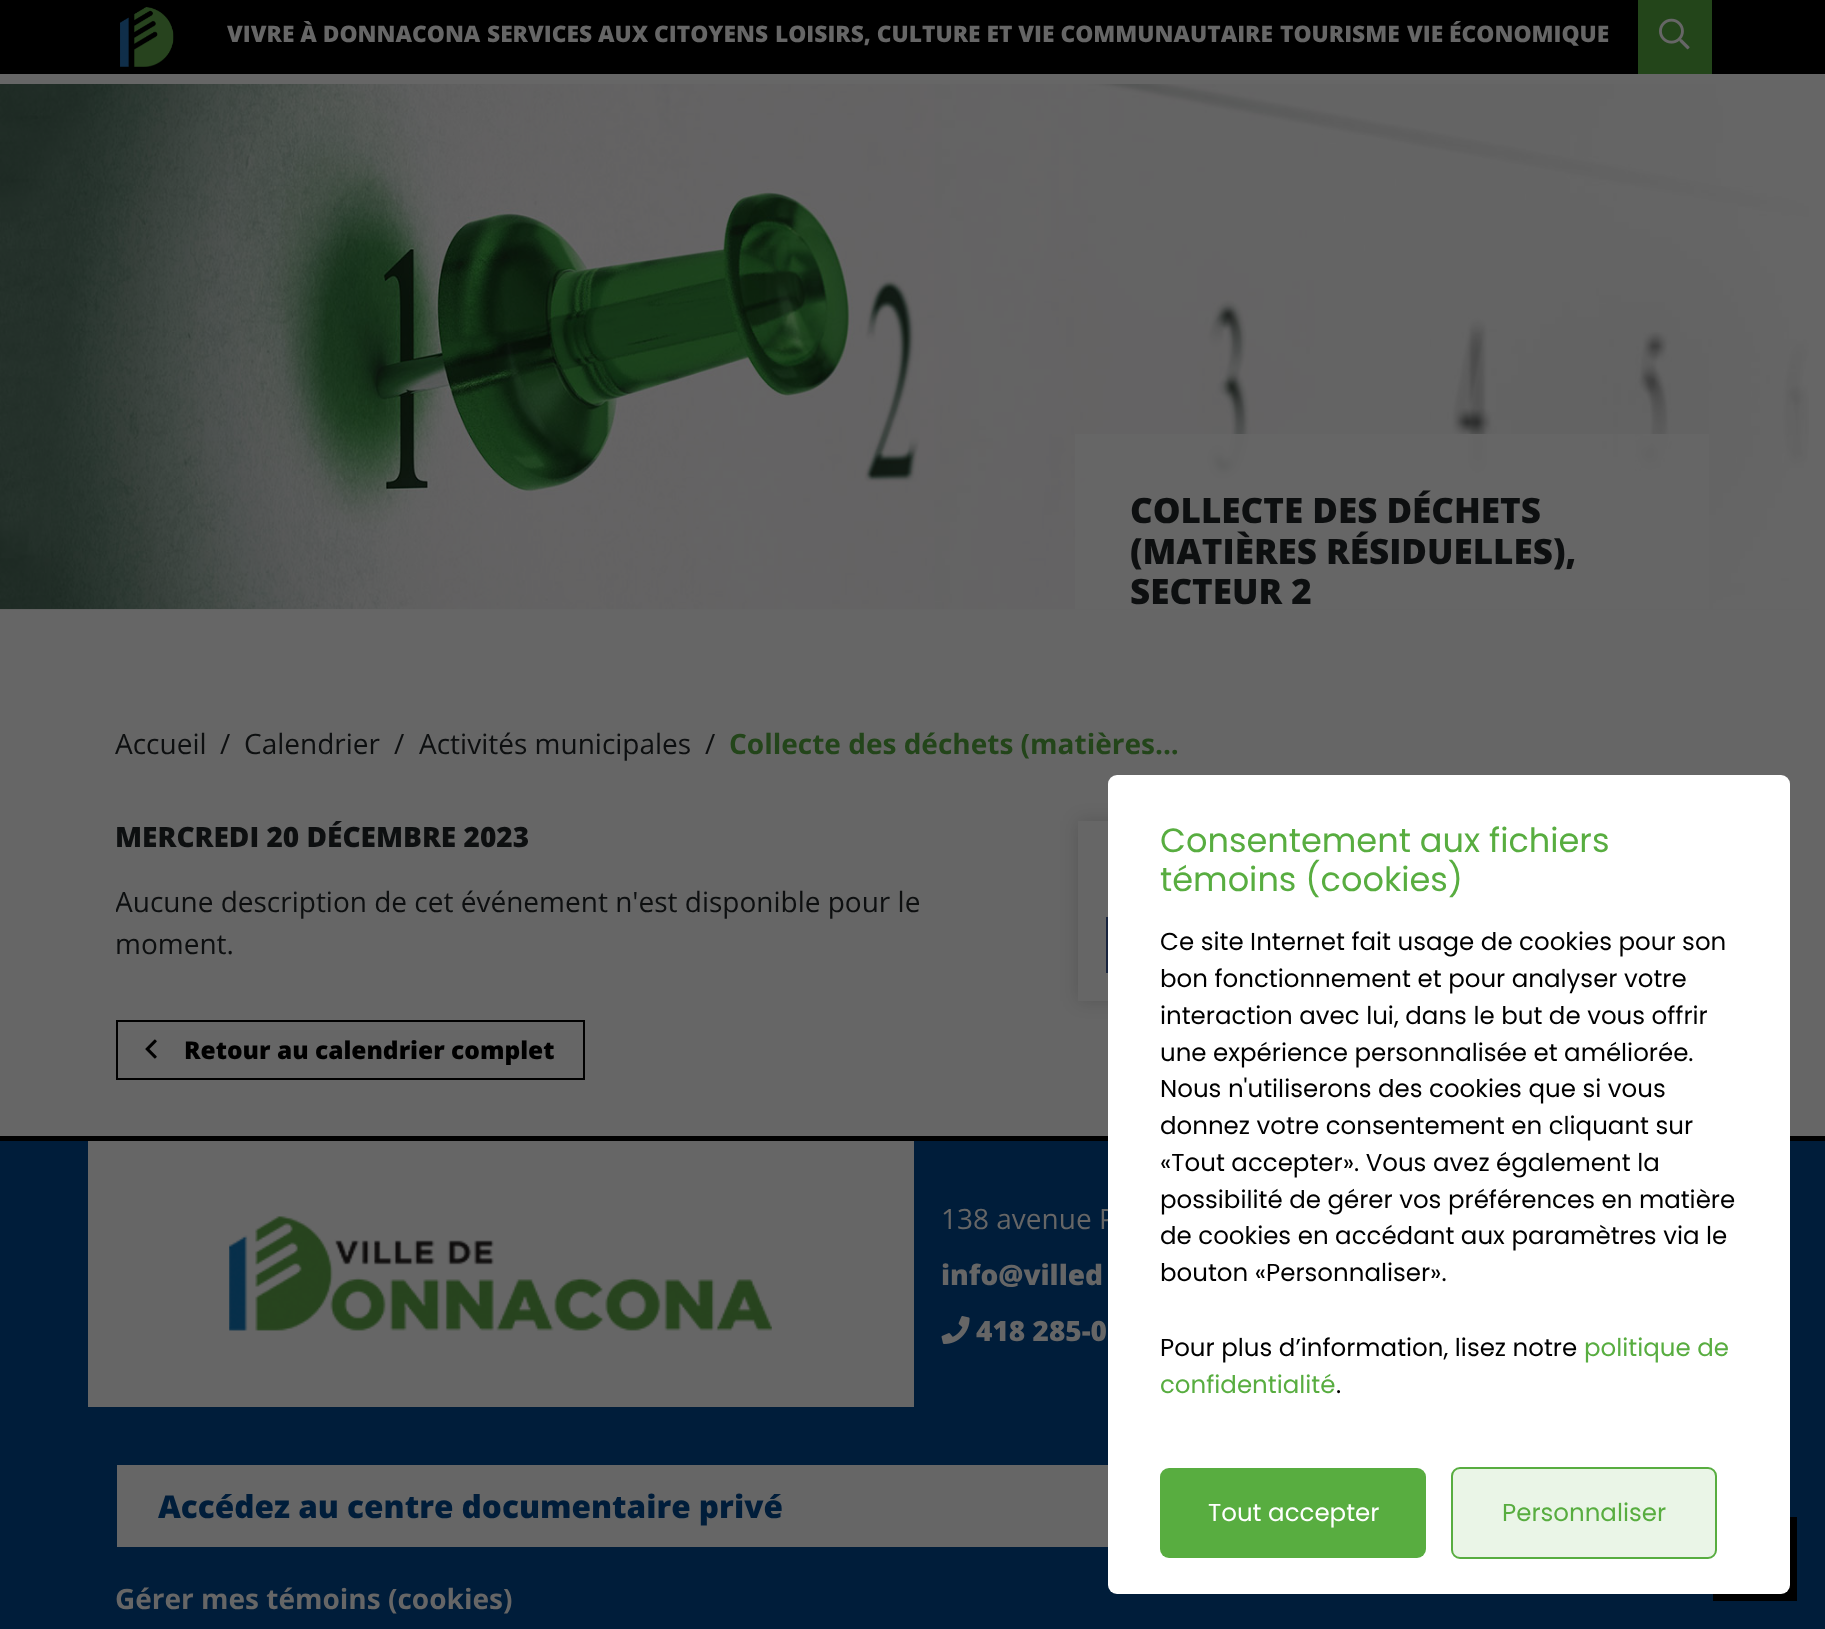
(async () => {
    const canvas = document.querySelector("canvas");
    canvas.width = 1825;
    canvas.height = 1629;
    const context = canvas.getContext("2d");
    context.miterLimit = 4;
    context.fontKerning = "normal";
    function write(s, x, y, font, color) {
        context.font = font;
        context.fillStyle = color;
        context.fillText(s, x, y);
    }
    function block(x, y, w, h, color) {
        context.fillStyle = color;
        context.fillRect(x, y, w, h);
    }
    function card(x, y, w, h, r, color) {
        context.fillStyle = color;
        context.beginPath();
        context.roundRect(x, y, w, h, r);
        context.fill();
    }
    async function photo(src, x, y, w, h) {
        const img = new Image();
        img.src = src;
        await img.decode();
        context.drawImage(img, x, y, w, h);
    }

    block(0, 0, 1825, 1629, "rgb(102, 102, 102)");
    block(0, 0, 1825, 74, "rgb(0, 0, 0)");
    await photo("media/1.png", 120, 7, 54, 60);
    write("VIVRE À DONNACONA", 227, 42, "800 22.75px Open Sans", "rgb(102, 102, 102)");
    write("SERVICES AUX CITOYENS", 487, 42, "800 22.75px Open Sans", "rgb(102, 102, 102)");
    write("LOISIRS, CULTURE ET VIE COMMUNAUTAIRE", 775, 42, "800 22.75px Open Sans", "rgb(102, 102, 102)");
    write("TOURISME", 1280, 42, "800 22.75px Open Sans", "rgb(102, 102, 102)");
    write("VIE ÉCONOMIQUE", 1407, 42, "800 22.75px Open Sans", "rgb(102, 102, 102)");
    block(1638, 0, 74, 74, "rgb(35, 69, 26)");
    await photo("media/2.png", 1659, 18, 31, 32);
    await photo("media/3.png", 0, 84, 1809, 526);
    block(1075, 434, 634, 175, "rgba(102, 102, 102, 0.9)");
    write("COLLECTE DES DÉCHETS", 1130, 523, "800 35px Open Sans", "rgb(13, 15, 16)");
    write("(MATIÈRES RÉSIDUELLES),", 1130, 564, "800 35px Open Sans", "rgb(13, 15, 16)");
    write("SECTEUR 2", 1130, 604, "800 35px Open Sans", "rgb(13, 15, 16)");
    write("Accueil", 115, 754, "28px Open Sans", "rgb(13, 15, 16)");
    write("/", 220, 754, "28px Open Sans", "rgb(13, 15, 16)");
    write("Calendrier", 244, 754, "28px Open Sans", "rgb(13, 15, 16)");
    write("/", 394, 754, "28px Open Sans", "rgb(13, 15, 16)");
    write("Activités municipales", 419, 754, "28px Open Sans", "rgb(13, 15, 16)");
    write("/", 705, 754, "28px Open Sans", "rgb(13, 15, 16)");
    write("Collecte des déchets (matières...", 729, 754, "bold 28px Open Sans", "rgb(35, 69, 26)");
    write("MERCREDI 20 DÉCEMBRE 2023", 115, 847, "800 28px Open Sans", "rgb(13, 15, 16)");
    context.save();
    context.beginPath();
    context.rect(116, 880, 906, 200);
    context.clip();
    write("Aucune description de cet événement n'est disponible pour le", 115, 912, "28px Open Sans", "rgb(13, 15, 16)");
    context.restore();
    write("moment.", 115, 954, "28px Open Sans", "rgb(13, 15, 16)");
    context.strokeStyle = "rgb(0, 0, 0)";
    context.lineWidth = 2;
    context.strokeRect(117, 1021, 467, 58);
    await photo("media/4.png", 145, 1039, 12, 20);
    write("Retour au calendrier complet", 184, 1059, "800 24.5px Open Sans", "rgb(0, 0, 0)");
    context.fillStyle = "rgba(0, 0, 0, 0.15)";
    context.filter = "blur(9px)";
    context.beginPath();
    context.rect(1078, 821, 632, 180);
    context.fill();
    context.filter = "none";
    block(1078, 821, 30, 180, "rgb(102, 102, 102)");
    block(1106, 917, 2, 56, "rgb(24, 36, 61)");
    block(0, 1141, 1825, 488, "rgb(0, 29, 58)");
    block(0, 1136, 1825, 5, "rgb(0, 0, 0)");
    block(88, 1141, 826, 266, "rgb(102, 102, 102)");
    await photo("media/5.png", 229, 1216, 543, 115);
    write("138 avenue P", 941, 1229, "28px Open Sans", "rgb(102, 102, 102)");
    write("info@villed", 941, 1285, "800 28px Open Sans", "rgb(102, 102, 102)");
    await photo("media/6.png", 941, 1316, 29, 28);
    write("418 285-0", 976, 1341, "800 28px Open Sans", "rgb(102, 102, 102)");
    block(117, 1465, 991, 82, "rgb(102, 102, 102)");
    write("Accédez au centre documentaire privé", 158, 1518, "800 31.5px Open Sans", "rgb(0, 29, 58)");
    write("Gérer mes témoins (cookies)", 115, 1609, "bold 28px Open Sans", "rgb(102, 102, 102)");
    block(1713, 1517, 84, 84, "rgb(0, 0, 0)");
    card(1108, 775, 682, 819, 9, "rgb(255, 255, 255)");
    write("Consentement aux fichiers", 1160, 852, "33.6px Poppins", "rgb(88, 173, 64)");
    write("témoins (cookies)", 1160, 891, "33.6px Poppins", "rgb(88, 173, 64)");
    write("Ce site Internet fait usage de cookies pour son", 1160, 950, "24.5px Poppins", "rgb(0, 0, 0)");
    write("bon fonctionnement et pour analyser votre", 1160, 987, "24.5px Poppins", "rgb(0, 0, 0)");
    write("interaction avec lui, dans le but de vous offrir", 1160, 1024, "24.5px Poppins", "rgb(0, 0, 0)");
    write("une expérience personnalisée et améliorée.", 1160, 1061, "24.5px Poppins", "rgb(0, 0, 0)");
    write("Nous n'utiliserons des cookies que si vous", 1160, 1097, "24.5px Poppins", "rgb(0, 0, 0)");
    write("donnez votre consentement en cliquant sur", 1160, 1134, "24.5px Poppins", "rgb(0, 0, 0)");
    write("«Tout accepter». Vous avez également la", 1160, 1171, "24.5px Poppins", "rgb(0, 0, 0)");
    write("possibilité de gérer vos préférences en matière", 1160, 1208, "24.5px Poppins", "rgb(0, 0, 0)");
    write("de cookies en accédant aux paramètres via le", 1160, 1244, "24.5px Poppins", "rgb(0, 0, 0)");
    write("bouton «Personnaliser».", 1160, 1281, "24.5px Poppins", "rgb(0, 0, 0)");
    write("Pour plus d’information, lisez notre", 1160, 1356, "24.5px Poppins", "rgb(0, 0, 0)");
    write("politique de", 1584, 1356, "24.5px Poppins", "rgb(88, 173, 64)");
    write("confidentialité", 1160, 1393, "24.5px Poppins", "rgb(88, 173, 64)");
    write(".", 1336, 1393, "24.5px Poppins", "rgb(0, 0, 0)");
    card(1160, 1468, 266, 90, 9, "rgb(88, 173, 64)");
    write("Tout accepter", 1208, 1521, "24.5px Poppins", "rgb(255, 255, 255)");
    context.fillStyle = "rgb(234, 245, 231)";
    context.beginPath();
    context.roundRect(1452, 1468, 264, 90, 8);
    context.fill();
    context.strokeStyle = "rgb(88, 173, 64)";
    context.stroke();
    write("Personnaliser", 1502, 1521, "24.5px Poppins", "rgb(88, 173, 64)");
})();
